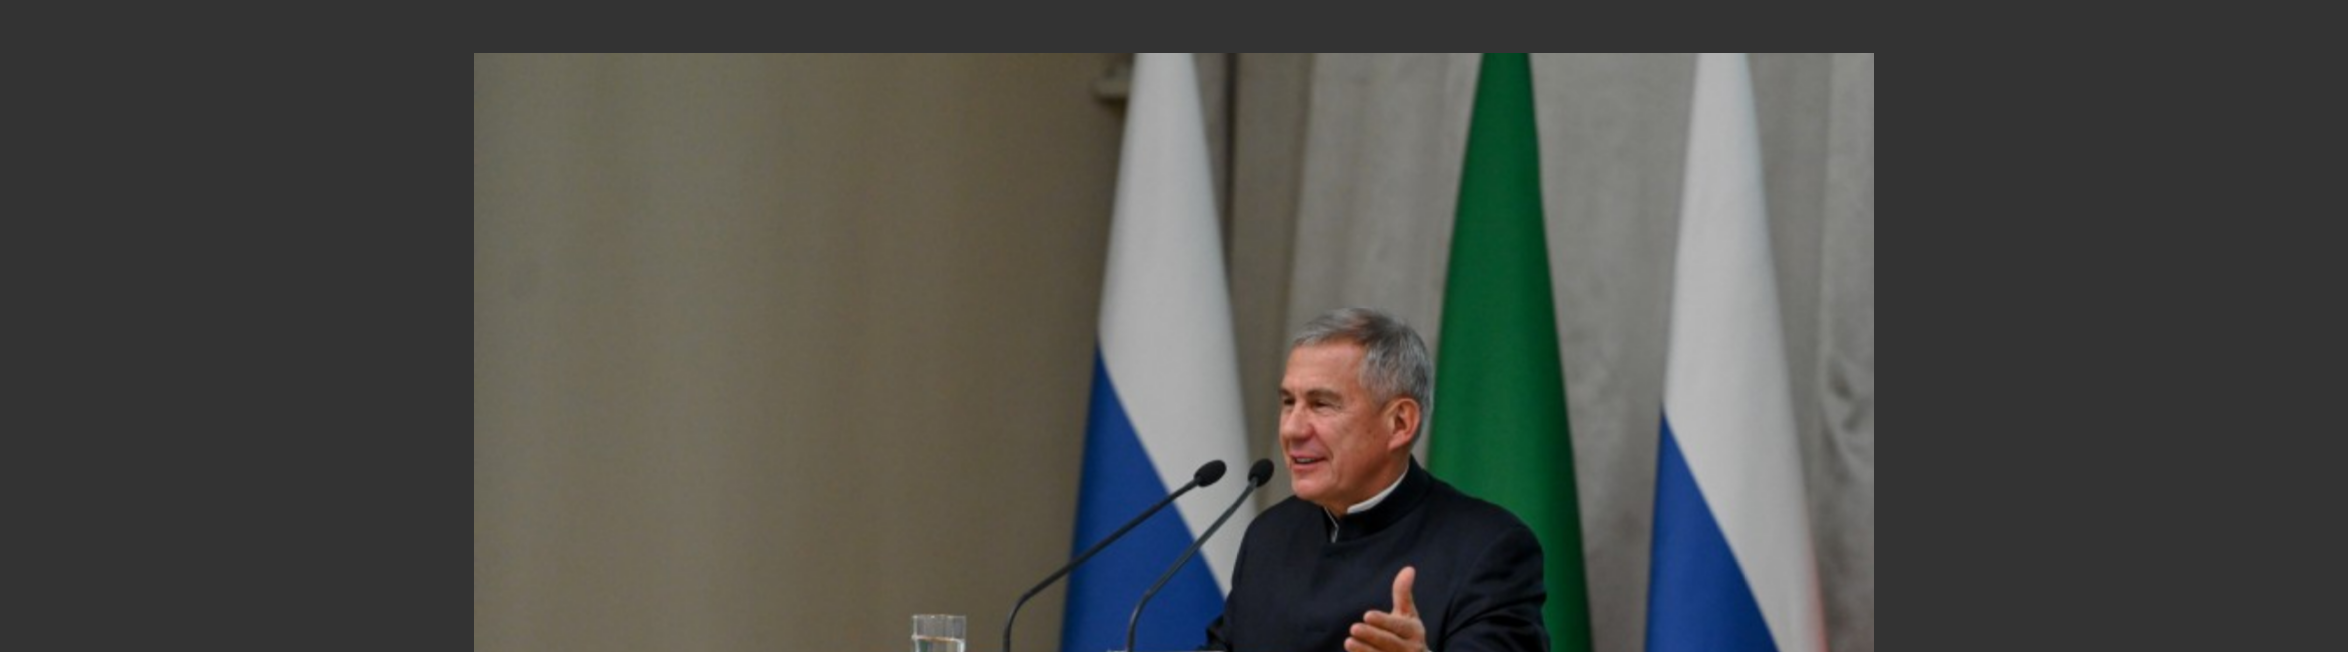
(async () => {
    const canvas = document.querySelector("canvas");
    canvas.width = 2348;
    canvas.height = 652;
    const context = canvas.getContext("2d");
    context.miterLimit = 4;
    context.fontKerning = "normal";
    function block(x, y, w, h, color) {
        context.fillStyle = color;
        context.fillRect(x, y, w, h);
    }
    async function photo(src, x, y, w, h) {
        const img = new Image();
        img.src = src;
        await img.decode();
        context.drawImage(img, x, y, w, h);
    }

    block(0, 0, 2348, 652, "rgb(51, 51, 51)");
    await photo("media/1.png", 474, 53, 1400, 599);
})();
